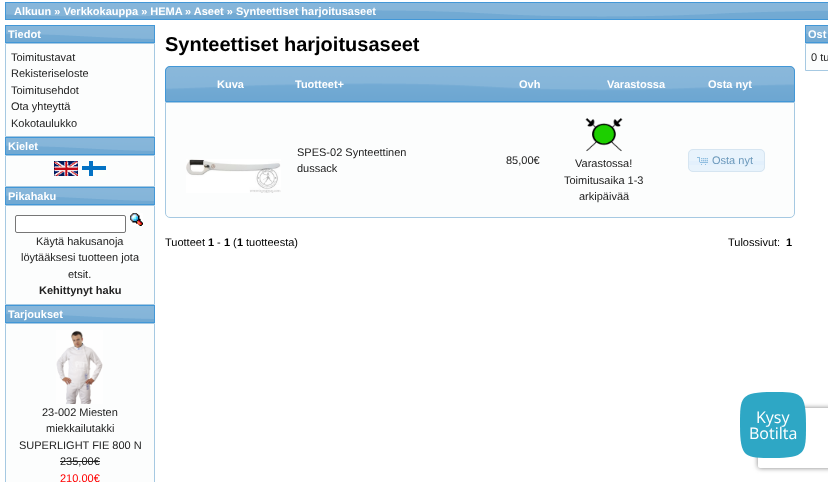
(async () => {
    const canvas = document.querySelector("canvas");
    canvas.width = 828;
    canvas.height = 482;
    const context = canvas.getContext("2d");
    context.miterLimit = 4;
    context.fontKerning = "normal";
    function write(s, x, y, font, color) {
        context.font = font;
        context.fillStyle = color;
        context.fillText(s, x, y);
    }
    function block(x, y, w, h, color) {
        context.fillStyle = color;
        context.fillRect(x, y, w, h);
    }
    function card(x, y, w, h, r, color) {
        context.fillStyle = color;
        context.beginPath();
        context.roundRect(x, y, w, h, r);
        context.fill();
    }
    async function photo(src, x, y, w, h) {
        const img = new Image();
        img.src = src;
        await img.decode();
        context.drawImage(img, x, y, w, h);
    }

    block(0, 0, 828, 482, "rgb(255, 255, 255)");
    await photo("media/1.png", 6, 3, 822, 16);
    context.strokeStyle = "rgb(66, 151, 215)";
    context.strokeRect(5.5, 2.5, 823, 17);
    write("Alkuun » Verkkokauppa » HEMA", 14, 15, "bold 11px Liberation Sans", "rgb(255, 255, 255)");
    write("» Aseet » Synteettiset harjoitusaseet", 185, 15, "bold 11px Liberation Sans", "rgb(255, 255, 255)");
    await photo("media/2.png", 6, 26, 148, 16);
    context.strokeRect(5.5, 25.5, 149, 17);
    write("Tiedot", 8, 38, "bold 11px Liberation Sans", "rgb(255, 255, 255)");
    context.fillStyle = "rgb(252, 253, 253)";
    context.beginPath();
    context.rect(5.5, 43.5, 149, 93);
    context.fill();
    context.strokeStyle = "rgb(166, 201, 226)";
    context.stroke();
    write("Toimitustavat", 11, 61, "11px Liberation Sans", "rgb(34, 34, 34)");
    write("Rekisteriseloste", 11, 77, "11px Liberation Sans", "rgb(34, 34, 34)");
    write("Toimitusehdot", 11, 94, "11px Liberation Sans", "rgb(34, 34, 34)");
    write("Ota yhteyttä", 11, 110, "11px Liberation Sans", "rgb(34, 34, 34)");
    write("Kokotaulukko", 11, 127, "11px Liberation Sans", "rgb(34, 34, 34)");
    await photo("media/2.png", 6, 138, 148, 16);
    context.strokeStyle = "rgb(66, 151, 215)";
    context.strokeRect(5.5, 137.5, 149, 17);
    write("Kielet", 8, 150, "bold 11px Liberation Sans", "rgb(255, 255, 255)");
    context.fillStyle = "rgb(252, 253, 253)";
    context.beginPath();
    context.rect(5.5, 155.5, 149, 31);
    context.fill();
    context.strokeStyle = "rgb(166, 201, 226)";
    context.stroke();
    await photo("media/3.png", 54, 161, 24, 15);
    await photo("media/4.png", 82, 161, 24, 15);
    await photo("media/2.png", 6, 188, 148, 16);
    context.strokeStyle = "rgb(66, 151, 215)";
    context.strokeRect(5.5, 187.5, 149, 17);
    write("Pikahaku", 8, 200, "bold 11px Liberation Sans", "rgb(255, 255, 255)");
    context.fillStyle = "rgb(252, 253, 253)";
    context.beginPath();
    context.rect(5.5, 205.5, 149, 99);
    context.fill();
    context.strokeStyle = "rgb(166, 201, 226)";
    context.stroke();
    context.fillStyle = "rgb(255, 255, 255)";
    context.beginPath();
    context.roundRect(15.5, 215.5, 110, 17, 1.5);
    context.fill();
    context.strokeStyle = "rgb(118, 118, 118)";
    context.stroke();
    await photo("media/5.png", 130, 213, 13, 13);
    write("Käytä hakusanoja", 36, 245, "11px Liberation Sans", "rgb(34, 34, 34)");
    write("löytääksesi tuotteen jota", 21, 261, "11px Liberation Sans", "rgb(34, 34, 34)");
    write("etsit.", 68, 278, "11px Liberation Sans", "rgb(34, 34, 34)");
    write("Kehittynyt haku", 39, 294, "bold 11px Liberation Sans", "rgb(34, 34, 34)");
    await photo("media/2.png", 6, 306, 148, 16);
    context.strokeStyle = "rgb(66, 151, 215)";
    context.strokeRect(5.5, 305.5, 149, 17);
    write("Tarjoukset", 8, 318, "bold 11px Liberation Sans", "rgb(255, 255, 255)");
    context.fillStyle = "rgb(252, 253, 253)";
    context.beginPath();
    context.rect(5.5, 323.5, 149, 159);
    context.fill();
    context.strokeStyle = "rgb(166, 201, 226)";
    context.stroke();
    await photo("media/6.png", 56, 330, 47, 74);
    write("23-002 Miesten", 42, 416, "11px Liberation Sans", "rgb(34, 34, 34)");
    write("miekkailutakki", 46, 432, "11px Liberation Sans", "rgb(34, 34, 34)");
    write("SUPERLIGHT FIE 800 N", 19, 449, "11px Liberation Sans", "rgb(34, 34, 34)");
    write("235,00€", 60, 465, "11px Liberation Sans", "rgb(34, 34, 34)");
    block(60, 461, 40, 1, "rgb(34, 34, 34)");
    write("210,00€", 60, 482, "11px Liberation Sans", "rgb(255, 0, 0)");
    write("Synteettiset harjoitusaseet", 165, 51, "bold 20px Liberation Sans", "rgb(0, 0, 0)");
    await photo("media/7.png", 165, 66, 630, 35);
    context.beginPath();
    context.roundRect(165.5, 66.5, 629, 35, [4.5, 4.5, 0, 0]);
    context.strokeStyle = "rgb(66, 151, 215)";
    context.stroke();
    write("Kuva", 217, 88, "bold 11px Liberation Sans", "rgb(255, 255, 255)");
    write("Tuotteet+", 295, 88, "bold 11px Liberation Sans", "rgb(255, 255, 255)");
    write("Ovh", 519, 88, "bold 11px Liberation Sans", "rgb(255, 255, 255)");
    write("Varastossa", 607, 88, "bold 11px Liberation Sans", "rgb(255, 255, 255)");
    write("Osta nyt", 708, 88, "bold 11px Liberation Sans", "rgb(255, 255, 255)");
    context.fillStyle = "rgb(252, 253, 253)";
    context.beginPath();
    context.roundRect(165.5, 102.5, 629, 115, [0, 0, 4.5, 4.5]);
    context.fill();
    context.strokeStyle = "rgb(166, 201, 226)";
    context.stroke();
    await photo("media/8.png", 186, 159, 95, 34);
    write("SPES-02 Synteettinen", 297, 156, "11px Liberation Sans", "rgb(34, 34, 34)");
    write("dussack", 297, 172, "11px Liberation Sans", "rgb(34, 34, 34)");
    write("85,00€", 506, 164, "11px Liberation Sans", "rgb(34, 34, 34)");
    await photo("media/9.png", 585, 118, 38, 34);
    write("Varastossa!", 575, 167, "11px Liberation Sans", "rgb(34, 34, 34)");
    write("Toimitusaika 1-3", 564, 184, "11px Liberation Sans", "rgb(34, 34, 34)");
    write("arkipäivää", 579, 200, "11px Liberation Sans", "rgb(34, 34, 34)");
    card(688, 149, 77, 23, 5, "rgb(232, 243, 252)");
    block(688, 161, 77, 4, "rgb(227, 240, 252)");
    context.beginPath();
    context.roundRect(688.5, 149.5, 76, 22, 4.5);
    context.strokeStyle = "rgb(214, 229, 241)";
    context.stroke();
    await photo("media/10.png", 697, 157, 11, 8);
    write("Osta nyt", 712, 164, "11px Liberation Sans", "rgb(108, 153, 187)");
    write("Tuotteet", 165, 246, "11px Liberation Sans", "rgb(0, 0, 0)");
    write("1", 208, 246, "bold 11px Liberation Sans", "rgb(0, 0, 0)");
    write("-", 217, 246, "11px Liberation Sans", "rgb(0, 0, 0)");
    write("1", 224, 246, "bold 11px Liberation Sans", "rgb(0, 0, 0)");
    write("(", 233, 246, "11px Liberation Sans", "rgb(0, 0, 0)");
    write("1", 237, 246, "bold 11px Liberation Sans", "rgb(0, 0, 0)");
    write("tuotteesta)", 246, 246, "11px Liberation Sans", "rgb(0, 0, 0)");
    write("Tulossivut:", 728, 246, "11px Liberation Sans", "rgb(0, 0, 0)");
    write("1", 786, 246, "bold 11px Liberation Sans", "rgb(0, 0, 0)");
    await photo("media/11.png", 806, 26, 22, 16);
    context.strokeStyle = "rgb(66, 151, 215)";
    context.strokeRect(805.5, 25.5, 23, 17);
    write("Ost", 808, 38, "bold 11px Liberation Sans", "rgb(255, 255, 255)");
    context.fillStyle = "rgb(252, 253, 253)";
    context.beginPath();
    context.rect(805.5, 43.5, 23, 27);
    context.fill();
    context.strokeStyle = "rgb(166, 201, 226)";
    context.stroke();
    write("0 tu", 811, 61, "11px Liberation Sans", "rgb(34, 34, 34)");
    context.save();
    context.beginPath();
    context.moveTo(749, 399);
    context.lineTo(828, 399);
    context.lineTo(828, 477);
    context.lineTo(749, 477);
    context.closePath();
    context.moveTo(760, 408);
    context.lineTo(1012, 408);
    context.bezierCurveTo(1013, 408, 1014, 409, 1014, 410);
    context.lineTo(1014, 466);
    context.bezierCurveTo(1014, 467, 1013, 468, 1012, 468);
    context.lineTo(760, 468);
    context.bezierCurveTo(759, 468, 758, 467, 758, 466);
    context.lineTo(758, 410);
    context.bezierCurveTo(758, 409, 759, 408, 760, 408);
    context.closePath();
    context.clip("evenodd");
    context.fillStyle = "rgb(128, 128, 128)";
    context.filter = "blur(2.5px)";
    context.beginPath();
    context.roundRect(758, 408, 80, 60, 2);
    context.fill();
    context.filter = "none";
    context.restore();
    context.fillStyle = "rgb(46, 167, 197)";
    context.beginPath();
    context.moveTo(773, 392);
    context.bezierCurveTo(801, 392, 806, 392, 806, 425);
    context.bezierCurveTo(806, 453, 806, 458, 773, 458);
    context.bezierCurveTo(745, 458, 740, 458, 740, 425);
    context.bezierCurveTo(740, 397, 740, 392, 773, 392);
    context.closePath();
    context.fill();
    write("Kysy", 756, 423, "16px Open Sans", "rgb(255, 255, 255)");
    write("Botilta", 749, 439, "16px Open Sans", "rgb(255, 255, 255)");
})();
